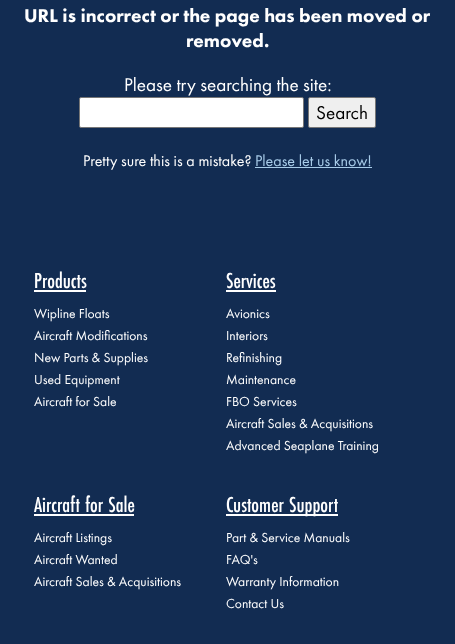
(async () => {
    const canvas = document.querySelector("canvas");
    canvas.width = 455;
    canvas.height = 644;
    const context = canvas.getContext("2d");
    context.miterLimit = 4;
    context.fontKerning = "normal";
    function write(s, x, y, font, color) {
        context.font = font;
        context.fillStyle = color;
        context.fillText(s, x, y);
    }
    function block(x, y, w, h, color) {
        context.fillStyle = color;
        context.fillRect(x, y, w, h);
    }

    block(0, 0, 455, 644, "rgb(18, 44, 82)");
    write("URL is incorrect or the page has been moved or", 24, 22, "900 19.2px Futura PT", "rgb(255, 255, 255)");
    write("removed.", 186, 47, "900 19.2px Futura PT", "rgb(255, 255, 255)");
    write("Please try searching the site:", 124, 91, "19.2px Futura PT", "rgb(255, 255, 255)");
    context.beginPath();
    context.roundRect(79.5, 97.5, 224, 30, 1.5);
    context.fill();
    context.strokeStyle = "rgb(118, 118, 118)";
    context.stroke();
    context.fillStyle = "rgb(239, 239, 239)";
    context.beginPath();
    context.roundRect(308.5, 97.5, 67, 30, 1.5);
    context.fill();
    context.stroke();
    write("Search", 316, 119, "19.2px Futura PT", "rgb(0, 0, 0)");
    write("Pretty sure this is a mistake?", 83, 166, "16px Futura PT", "rgb(255, 255, 255)");
    write("Please let us know!", 255, 166, "16px Futura PT", "rgb(168, 204, 233)");
    block(255, 167, 117, 1, "rgb(168, 204, 233)");
    write("Products", 34, 288, "500 22.5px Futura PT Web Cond", "rgb(255, 255, 255)");
    block(34, 290, 52, 2, "rgb(255, 255, 255)");
    write("Wipline Floats", 34, 318, "13.6px Futura PT", "rgb(255, 255, 255)");
    write("Aircraft Modifications", 34, 340, "13.6px Futura PT", "rgb(255, 255, 255)");
    write("New Parts & Supplies", 34, 362, "13.6px Futura PT", "rgb(255, 255, 255)");
    write("Used Equipment", 34, 384, "13.6px Futura PT", "rgb(255, 255, 255)");
    write("Aircraft for Sale", 34, 406, "13.6px Futura PT", "rgb(255, 255, 255)");
    write("Services", 226, 288, "500 22.5px Futura PT Web Cond", "rgb(255, 255, 255)");
    block(226, 290, 50, 2, "rgb(255, 255, 255)");
    write("Avionics", 226, 318, "13.6px Futura PT", "rgb(255, 255, 255)");
    write("Interiors", 226, 340, "13.6px Futura PT", "rgb(255, 255, 255)");
    write("Refinishing", 226, 362, "13.6px Futura PT", "rgb(255, 255, 255)");
    write("Maintenance", 226, 384, "13.6px Futura PT", "rgb(255, 255, 255)");
    write("FBO Services", 226, 406, "13.6px Futura PT", "rgb(255, 255, 255)");
    write("Aircraft Sales & Acquisitions", 226, 428, "13.6px Futura PT", "rgb(255, 255, 255)");
    write("Advanced Seaplane Training", 226, 450, "13.6px Futura PT", "rgb(255, 255, 255)");
    write("Aircraft for Sale", 34, 512, "500 22.5px Futura PT Web Cond", "rgb(255, 255, 255)");
    block(34, 514, 100, 2, "rgb(255, 255, 255)");
    write("Aircraft Listings", 34, 542, "13.6px Futura PT", "rgb(255, 255, 255)");
    write("Aircraft Wanted", 34, 564, "13.6px Futura PT", "rgb(255, 255, 255)");
    write("Aircraft Sales & Acquisitions", 34, 586, "13.6px Futura PT", "rgb(255, 255, 255)");
    block(226, 514, 112, 2, "rgb(255, 255, 255)");
    write("Customer Support", 226, 512, "500 22.5px Futura PT Web Cond", "rgb(255, 255, 255)");
    write("Part & Service Manuals", 226, 542, "13.6px Futura PT", "rgb(255, 255, 255)");
    write("FAQ's", 226, 564, "13.6px Futura PT", "rgb(255, 255, 255)");
    write("Warranty Information", 226, 586, "13.6px Futura PT", "rgb(255, 255, 255)");
    write("Contact Us", 226, 608, "13.6px Futura PT", "rgb(255, 255, 255)");
})();
